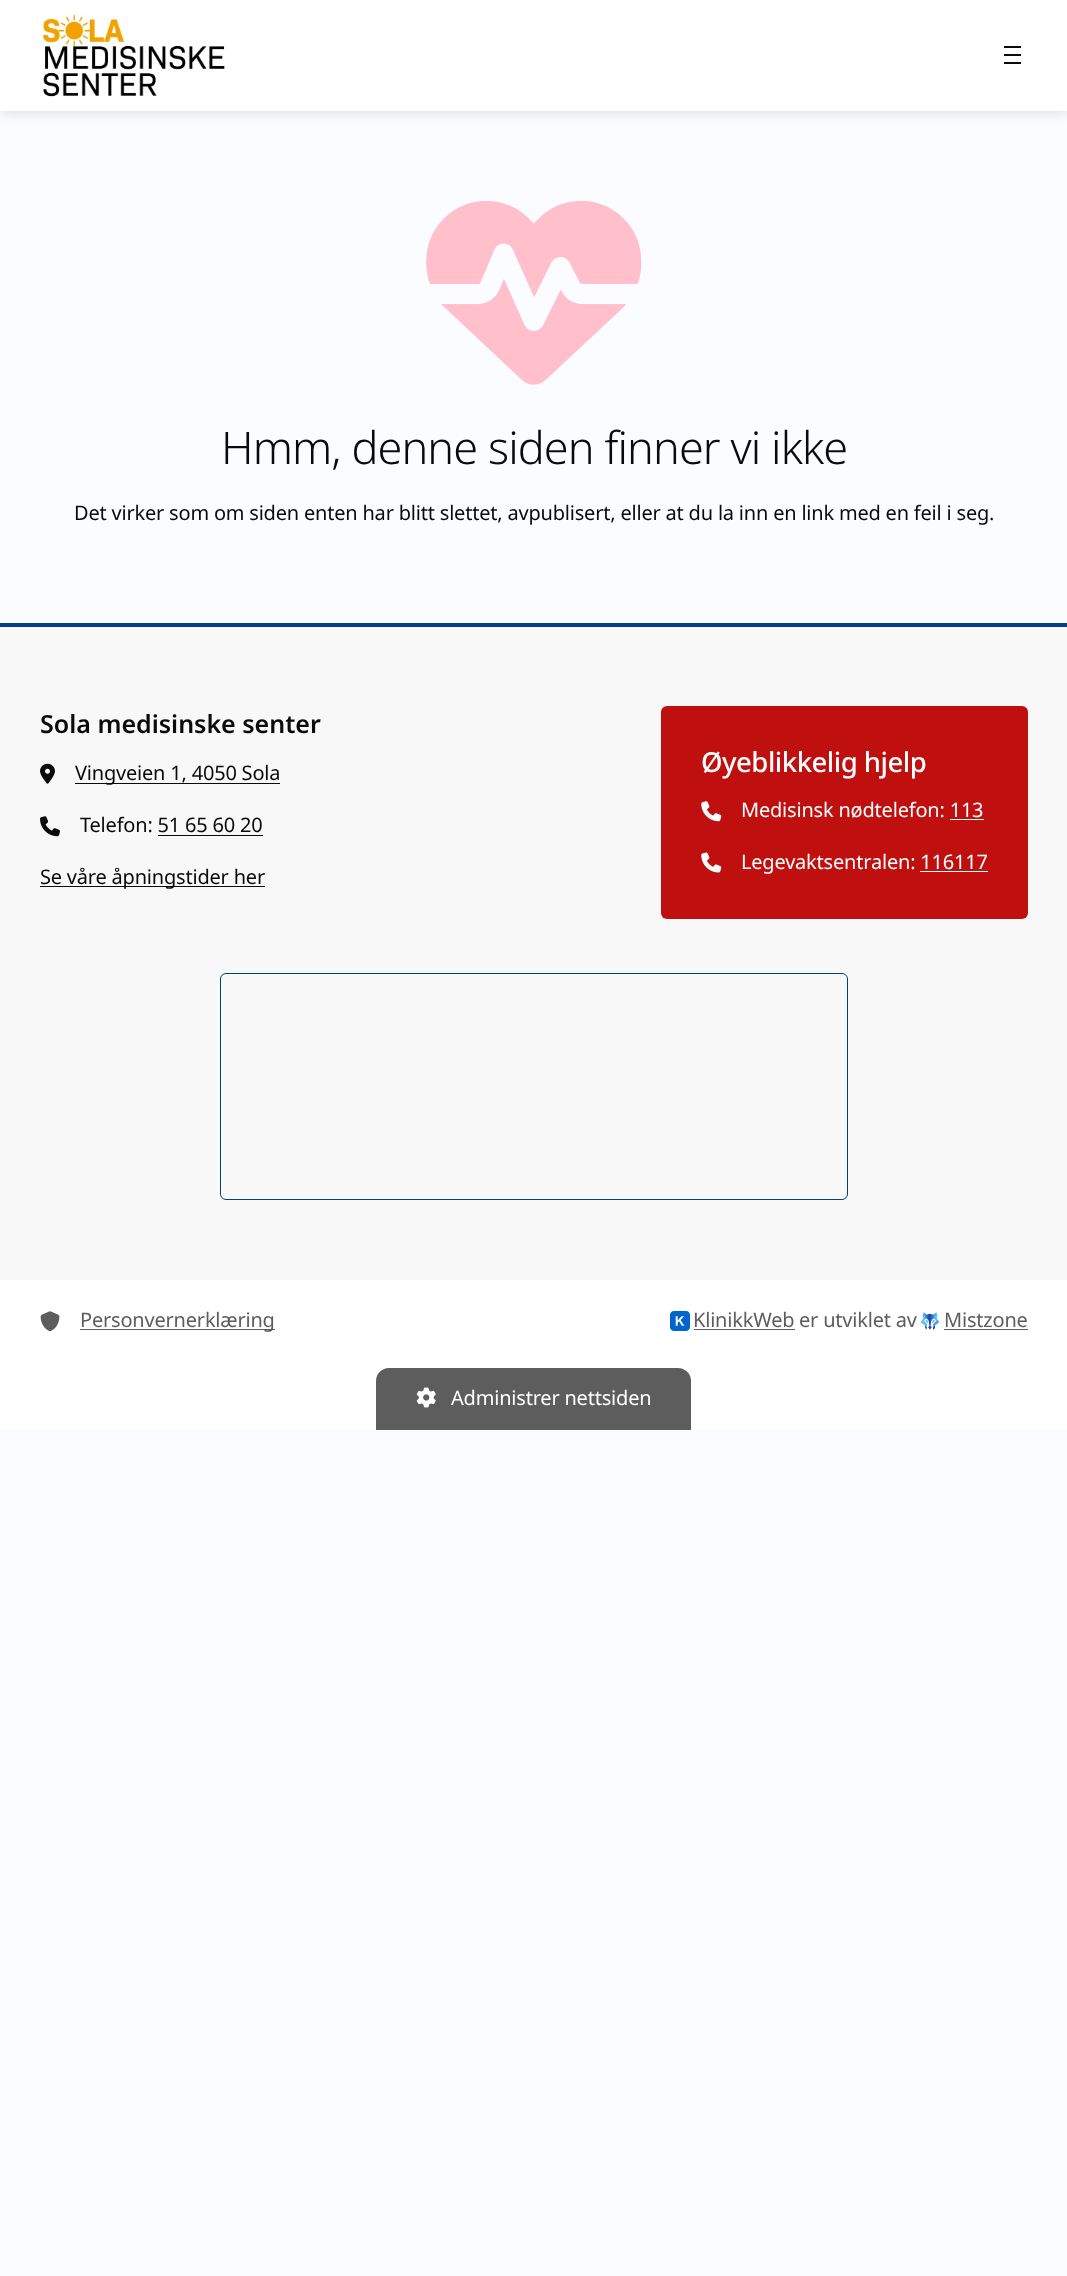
(async () => {
    const canvas = document.querySelector("canvas");
    canvas.width = 1067;
    canvas.height = 2276;
    const context = canvas.getContext("2d");
    context.miterLimit = 4;
    context.fontKerning = "normal";
    function write(s, x, y, font, color) {
        context.font = font;
        context.fillStyle = color;
        context.fillText(s, x, y);
    }
    function block(x, y, w, h, color) {
        context.fillStyle = color;
        context.fillRect(x, y, w, h);
    }
    function card(x, y, w, h, r, color) {
        context.fillStyle = color;
        context.beginPath();
        context.roundRect(x, y, w, h, r);
        context.fill();
    }
    async function photo(src, x, y, w, h) {
        const img = new Image();
        img.src = src;
        await img.decode();
        context.drawImage(img, x, y, w, h);
    }

    block(0, 0, 1067, 2276, "rgb(250, 252, 255)");
    context.fillStyle = "rgba(0, 0, 0, 0.1)";
    context.filter = "blur(6px)";
    context.beginPath();
    context.rect(0, 3, 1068, 111);
    context.fill();
    context.filter = "none";
    block(0, 0, 1067, 111, "rgb(255, 255, 255)");
    await photo("media/1.png", 43, 14, 182, 83);
    block(1004, 46, 17, 2, "rgb(10, 10, 10)");
    block(1004, 54, 17, 2, "rgb(10, 10, 10)");
    block(1004, 62, 17, 2, "rgb(10, 10, 10)");
    await photo("media/2.png", 426, 201, 216, 184);
    context.letterSpacing = "-0.9px";
    write("Hmm, denne siden finner vi ikke", 221, 464, "300 45px Noto Sans", "rgb(10, 10, 10)");
    context.letterSpacing = "-0.2px";
    write("Det virker som om siden enten har blitt slettet, avpublisert, eller at du la inn en link med en feil i seg.", 74, 520, "20px Noto Sans", "rgb(10, 10, 10)");
    block(0, 627, 1067, 653, "rgb(248, 248, 248)");
    block(0, 623, 1067, 4, "rgb(2, 62, 138)");
    context.letterSpacing = "0px";
    write("Sola medisinske senter", 40, 733, "600 25px Noto Sans", "rgb(10, 10, 10)");
    await photo("media/3.png", 40, 763, 15, 21);
    block(75, 783, 205, 1, "rgb(10, 10, 10)");
    context.letterSpacing = "-0.2px";
    write("Vingveien 1, 4050 Sola", 75, 780, "20px Noto Sans", "rgb(10, 10, 10)");
    await photo("media/4.png", 40, 816, 20, 21);
    write("Telefon: 51 65 60 20", 80, 832, "20px Noto Sans", "rgb(10, 10, 10)");
    block(158, 835, 105, 1, "rgb(10, 10, 10)");
    block(40, 886, 225, 1, "rgb(10, 10, 10)");
    write("Se våre åpningstider her", 40, 884, "20px Noto Sans", "rgb(10, 10, 10)");
    card(661, 706, 367, 213, 6, "rgb(191, 15, 15)");
    context.letterSpacing = "-0.5px";
    write("Øyeblikkelig hjelp", 701, 772, "500 27.5px Noto Sans", "rgb(255, 255, 255)");
    await photo("media/5.png", 701, 801, 21, 21);
    context.letterSpacing = "-0.2px";
    write("Medisinsk nødtelefon: 113", 741, 817, "20px Noto Sans", "rgb(255, 255, 255)");
    block(950, 819, 34, 1, "rgb(255, 255, 255)");
    await photo("media/6.png", 701, 852, 21, 21);
    write("Legevaktsentralen: 116117", 741, 869, "20px Noto Sans", "rgb(255, 255, 255)");
    block(920, 871, 68, 1, "rgb(255, 255, 255)");
    context.beginPath();
    context.roundRect(220.5, 973.5, 627, 226, 5.5);
    context.strokeStyle = "rgb(2, 62, 138)";
    context.stroke();
    block(0, 1280, 1067, 150, "rgb(255, 255, 255)");
    await photo("media/7.png", 40, 1311, 20, 21);
    block(80, 1329, 195, 1, "rgb(93, 93, 93)");
    write("Personvernerklæring", 80, 1327, "20px Noto Sans", "rgb(93, 93, 93)");
    await photo("media/8.png", 670, 1311, 20, 20);
    write("KlinikkWeb", 693, 1327, "20px Noto Sans", "rgb(93, 93, 93)");
    block(694, 1329, 101, 1, "rgb(93, 93, 93)");
    write("er utviklet av", 799, 1327, "20px Noto Sans", "rgb(93, 93, 93)");
    await photo("media/9.png", 920, 1312, 20, 18);
    write("Mistzone", 944, 1327, "20px Noto Sans", "rgb(93, 93, 93)");
    block(944, 1329, 84, 1, "rgb(93, 93, 93)");
    context.beginPath();
    context.roundRect(376, 1368, 315, 62, [13, 13, 0, 0]);
    context.fill();
    await photo("media/10.png", 416, 1387, 20, 21);
    write("Administrer nettsiden", 451, 1405, "20px Noto Sans", "rgb(255, 255, 255)");
})();
